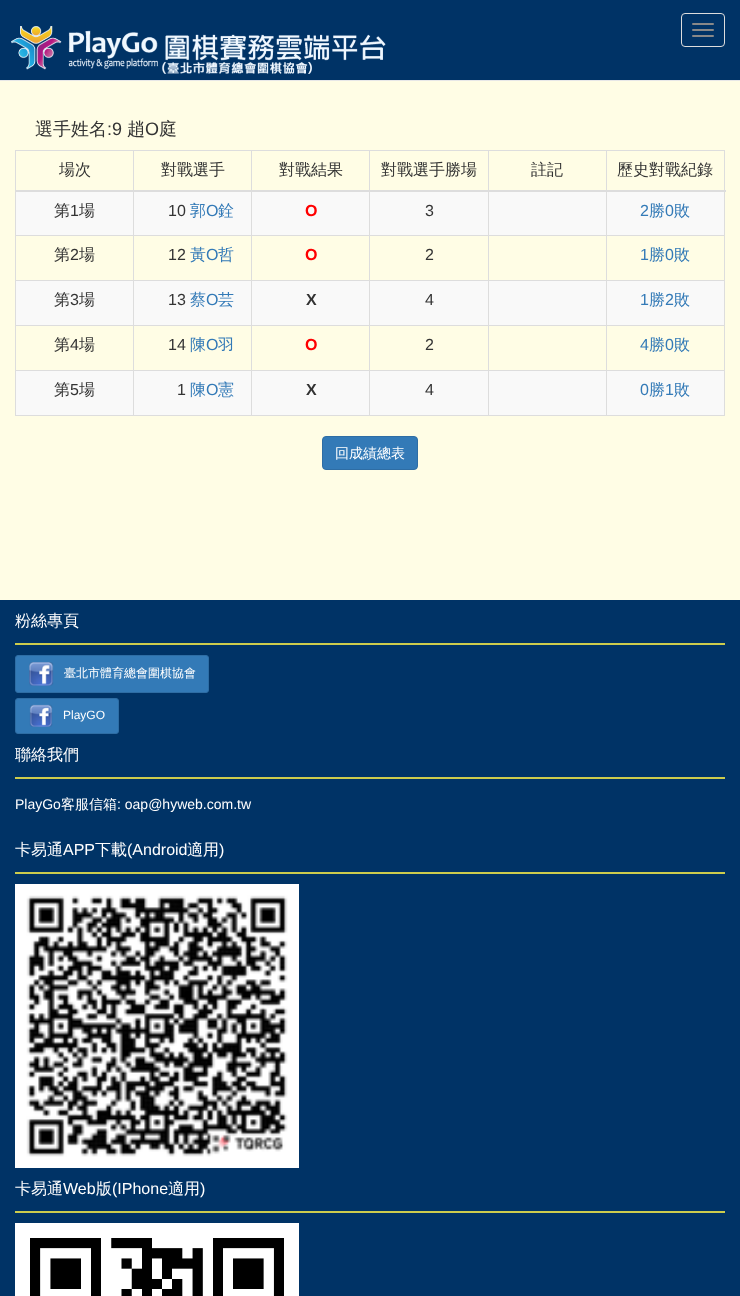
(async () => {
    const canvas = document.querySelector("canvas");
    canvas.width = 740;
    canvas.height = 1296;
    const context = canvas.getContext("2d");
    context.miterLimit = 4;
    context.fontKerning = "normal";
    function write(s, x, y, font, color) {
        context.font = font;
        context.fillStyle = color;
        context.fillText(s, x, y);
    }
    function block(x, y, w, h, color) {
        context.fillStyle = color;
        context.fillRect(x, y, w, h);
    }
    function card(x, y, w, h, r, color) {
        context.fillStyle = color;
        context.beginPath();
        context.roundRect(x, y, w, h, r);
        context.fill();
    }
    async function photo(src, x, y, w, h) {
        const img = new Image();
        img.src = src;
        await img.decode();
        context.drawImage(img, x, y, w, h);
    }

    block(0, 0, 740, 1296, "rgb(255, 253, 229)");
    block(0, 0, 740, 80, "rgb(0, 51, 102)");
    block(0, 80, 740, 1, "rgb(231, 231, 231)");
    await photo("media/1.png", 11, 26, 375, 48);
    context.beginPath();
    context.roundRect(681.5, 13.5, 43, 33, 3.5);
    context.strokeStyle = "rgb(221, 221, 221)";
    context.stroke();
    card(692, 23, 22, 2, 1, "rgb(136, 136, 136)");
    card(692, 29, 22, 2, 1, "rgb(136, 136, 136)");
    card(692, 35, 22, 2, 1, "rgb(136, 136, 136)");
    write("選手姓名", 35, 135, "500 18px WenQuanYi Zen Hei", "rgb(51, 51, 51)");
    write(":9", 107, 135, "18px Liberation Sans", "rgb(51, 51, 51)");
    write("趙", 127, 135, "500 18px WenQuanYi Zen Hei", "rgb(51, 51, 51)");
    write("O", 145, 135, "18px Liberation Sans", "rgb(51, 51, 51)");
    write("庭", 159, 135, "500 18px WenQuanYi Zen Hei", "rgb(51, 51, 51)");
    block(15, 150, 710, 1, "rgb(221, 221, 221)");
    block(724, 150, 1, 266, "rgb(221, 221, 221)");
    block(15, 415, 710, 1, "rgb(221, 221, 221)");
    block(15, 150, 1, 266, "rgb(221, 221, 221)");
    write("場次", 59, 175, "500 16px WenQuanYi Zen Hei", "rgb(51, 51, 51)");
    write("對戰選手", 161, 175, "500 16px WenQuanYi Zen Hei", "rgb(51, 51, 51)");
    write("對戰結果", 279, 175, "500 16px WenQuanYi Zen Hei", "rgb(51, 51, 51)");
    write("對戰選手勝場", 381, 175, "500 16px WenQuanYi Zen Hei", "rgb(51, 51, 51)");
    write("註記", 531, 175, "500 16px WenQuanYi Zen Hei", "rgb(51, 51, 51)");
    block(16, 192, 708, 43, "rgb(249, 249, 249)");
    block(606, 235, 119, 1, "rgb(221, 221, 221)");
    block(606, 280, 119, 1, "rgb(221, 221, 221)");
    block(16, 281, 708, 44, "rgb(249, 249, 249)");
    block(606, 325, 119, 1, "rgb(221, 221, 221)");
    block(606, 370, 119, 1, "rgb(221, 221, 221)");
    block(16, 371, 708, 44, "rgb(249, 249, 249)");
    block(606, 370, 1, 46, "rgb(221, 221, 221)");
    block(488, 370, 119, 1, "rgb(221, 221, 221)");
    block(606, 325, 1, 46, "rgb(221, 221, 221)");
    block(488, 325, 119, 1, "rgb(221, 221, 221)");
    block(606, 280, 1, 46, "rgb(221, 221, 221)");
    block(488, 280, 119, 1, "rgb(221, 221, 221)");
    block(606, 235, 1, 46, "rgb(221, 221, 221)");
    block(488, 235, 119, 1, "rgb(221, 221, 221)");
    block(488, 370, 1, 46, "rgb(221, 221, 221)");
    block(369, 370, 120, 1, "rgb(221, 221, 221)");
    block(488, 325, 1, 46, "rgb(221, 221, 221)");
    block(369, 325, 120, 1, "rgb(221, 221, 221)");
    block(488, 280, 1, 46, "rgb(221, 221, 221)");
    block(369, 280, 120, 1, "rgb(221, 221, 221)");
    block(488, 235, 1, 46, "rgb(221, 221, 221)");
    block(369, 235, 120, 1, "rgb(221, 221, 221)");
    block(369, 370, 1, 46, "rgb(221, 221, 221)");
    block(251, 370, 119, 1, "rgb(221, 221, 221)");
    block(369, 325, 1, 46, "rgb(221, 221, 221)");
    block(251, 325, 119, 1, "rgb(221, 221, 221)");
    block(369, 280, 1, 46, "rgb(221, 221, 221)");
    block(251, 280, 119, 1, "rgb(221, 221, 221)");
    block(369, 235, 1, 46, "rgb(221, 221, 221)");
    block(251, 235, 119, 1, "rgb(221, 221, 221)");
    block(251, 370, 1, 46, "rgb(221, 221, 221)");
    block(133, 370, 119, 1, "rgb(221, 221, 221)");
    block(251, 325, 1, 46, "rgb(221, 221, 221)");
    block(133, 325, 119, 1, "rgb(221, 221, 221)");
    block(251, 280, 1, 46, "rgb(221, 221, 221)");
    block(133, 280, 119, 1, "rgb(221, 221, 221)");
    block(251, 235, 1, 46, "rgb(221, 221, 221)");
    block(133, 235, 119, 1, "rgb(221, 221, 221)");
    block(133, 370, 1, 46, "rgb(221, 221, 221)");
    block(15, 370, 119, 1, "rgb(221, 221, 221)");
    block(133, 325, 1, 46, "rgb(221, 221, 221)");
    block(15, 325, 119, 1, "rgb(221, 221, 221)");
    block(133, 280, 1, 46, "rgb(221, 221, 221)");
    block(15, 280, 119, 1, "rgb(221, 221, 221)");
    block(133, 235, 1, 46, "rgb(221, 221, 221)");
    block(15, 235, 119, 1, "rgb(221, 221, 221)");
    block(133, 150, 1, 86, "rgb(221, 221, 221)");
    block(251, 150, 1, 86, "rgb(221, 221, 221)");
    block(369, 150, 1, 86, "rgb(221, 221, 221)");
    block(488, 150, 1, 86, "rgb(221, 221, 221)");
    block(606, 150, 1, 86, "rgb(221, 221, 221)");
    block(15, 190, 711, 2, "rgb(221, 221, 221)");
    write("歷史對戰紀錄", 617, 175, "500 16px WenQuanYi Zen Hei", "rgb(51, 51, 51)");
    write("第", 54, 216, "500 16px WenQuanYi Zen Hei", "rgb(51, 51, 51)");
    write("1", 70, 216, "16px Liberation Sans", "rgb(51, 51, 51)");
    write("場", 79, 216, "500 16px WenQuanYi Zen Hei", "rgb(51, 51, 51)");
    write("10", 168, 216, "16px Liberation Sans", "rgb(51, 51, 51)");
    write("郭", 190, 216, "500 16px WenQuanYi Zen Hei", "rgb(51, 122, 183)");
    write("O", 206, 216, "16px Liberation Sans", "rgb(51, 122, 183)");
    write("銓", 218, 216, "500 16px WenQuanYi Zen Hei", "rgb(51, 122, 183)");
    write("O", 305, 216, "bold 16px Liberation Sans", "rgb(255, 0, 0)");
    write("3", 425, 216, "16px Liberation Sans", "rgb(51, 51, 51)");
    write("2", 640, 216, "16px Liberation Sans", "rgb(51, 122, 183)");
    write("勝", 649, 216, "500 16px WenQuanYi Zen Hei", "rgb(51, 122, 183)");
    write("0", 665, 216, "16px Liberation Sans", "rgb(51, 122, 183)");
    write("敗", 674, 216, "500 16px WenQuanYi Zen Hei", "rgb(51, 122, 183)");
    write("第", 54, 260, "500 16px WenQuanYi Zen Hei", "rgb(51, 51, 51)");
    write("2", 70, 260, "16px Liberation Sans", "rgb(51, 51, 51)");
    write("場", 79, 260, "500 16px WenQuanYi Zen Hei", "rgb(51, 51, 51)");
    write("12", 168, 260, "16px Liberation Sans", "rgb(51, 51, 51)");
    write("黃", 190, 260, "500 16px WenQuanYi Zen Hei", "rgb(51, 122, 183)");
    write("O", 206, 260, "16px Liberation Sans", "rgb(51, 122, 183)");
    write("哲", 218, 260, "500 16px WenQuanYi Zen Hei", "rgb(51, 122, 183)");
    write("O", 305, 260, "bold 16px Liberation Sans", "rgb(255, 0, 0)");
    write("2", 425, 260, "16px Liberation Sans", "rgb(51, 51, 51)");
    write("1", 640, 260, "16px Liberation Sans", "rgb(51, 122, 183)");
    write("勝", 649, 260, "500 16px WenQuanYi Zen Hei", "rgb(51, 122, 183)");
    write("0", 665, 260, "16px Liberation Sans", "rgb(51, 122, 183)");
    write("敗", 674, 260, "500 16px WenQuanYi Zen Hei", "rgb(51, 122, 183)");
    write("第", 54, 305, "500 16px WenQuanYi Zen Hei", "rgb(51, 51, 51)");
    write("3", 70, 305, "16px Liberation Sans", "rgb(51, 51, 51)");
    write("場", 79, 305, "500 16px WenQuanYi Zen Hei", "rgb(51, 51, 51)");
    write("13", 168, 305, "16px Liberation Sans", "rgb(51, 51, 51)");
    write("蔡", 190, 305, "500 16px WenQuanYi Zen Hei", "rgb(51, 122, 183)");
    write("O", 206, 305, "16px Liberation Sans", "rgb(51, 122, 183)");
    write("芸", 218, 305, "500 16px WenQuanYi Zen Hei", "rgb(51, 122, 183)");
    write("X", 306, 305, "bold 16px Liberation Sans", "rgb(51, 51, 51)");
    write("4", 425, 305, "16px Liberation Sans", "rgb(51, 51, 51)");
    write("1", 640, 305, "16px Liberation Sans", "rgb(51, 122, 183)");
    write("勝", 649, 305, "500 16px WenQuanYi Zen Hei", "rgb(51, 122, 183)");
    write("2", 665, 305, "16px Liberation Sans", "rgb(51, 122, 183)");
    write("敗", 674, 305, "500 16px WenQuanYi Zen Hei", "rgb(51, 122, 183)");
    write("第", 54, 350, "500 16px WenQuanYi Zen Hei", "rgb(51, 51, 51)");
    write("4", 70, 350, "16px Liberation Sans", "rgb(51, 51, 51)");
    write("場", 79, 350, "500 16px WenQuanYi Zen Hei", "rgb(51, 51, 51)");
    write("14", 168, 350, "16px Liberation Sans", "rgb(51, 51, 51)");
    write("陳", 190, 350, "500 16px WenQuanYi Zen Hei", "rgb(51, 122, 183)");
    write("O", 206, 350, "16px Liberation Sans", "rgb(51, 122, 183)");
    write("羽", 218, 350, "500 16px WenQuanYi Zen Hei", "rgb(51, 122, 183)");
    write("O", 305, 350, "bold 16px Liberation Sans", "rgb(255, 0, 0)");
    write("2", 425, 350, "16px Liberation Sans", "rgb(51, 51, 51)");
    write("4", 640, 350, "16px Liberation Sans", "rgb(51, 122, 183)");
    write("勝", 649, 350, "500 16px WenQuanYi Zen Hei", "rgb(51, 122, 183)");
    write("0", 665, 350, "16px Liberation Sans", "rgb(51, 122, 183)");
    write("敗", 674, 350, "500 16px WenQuanYi Zen Hei", "rgb(51, 122, 183)");
    write("第", 54, 395, "500 16px WenQuanYi Zen Hei", "rgb(51, 51, 51)");
    write("5", 70, 395, "16px Liberation Sans", "rgb(51, 51, 51)");
    write("場", 79, 395, "500 16px WenQuanYi Zen Hei", "rgb(51, 51, 51)");
    write("1", 177, 395, "16px Liberation Sans", "rgb(51, 51, 51)");
    write("陳", 190, 395, "500 16px WenQuanYi Zen Hei", "rgb(51, 122, 183)");
    write("O", 206, 395, "16px Liberation Sans", "rgb(51, 122, 183)");
    write("憲", 218, 395, "500 16px WenQuanYi Zen Hei", "rgb(51, 122, 183)");
    write("X", 306, 395, "bold 16px Liberation Sans", "rgb(51, 51, 51)");
    write("4", 425, 395, "16px Liberation Sans", "rgb(51, 51, 51)");
    write("0", 640, 395, "16px Liberation Sans", "rgb(51, 122, 183)");
    write("勝", 649, 395, "500 16px WenQuanYi Zen Hei", "rgb(51, 122, 183)");
    write("1", 665, 395, "16px Liberation Sans", "rgb(51, 122, 183)");
    write("敗", 674, 395, "500 16px WenQuanYi Zen Hei", "rgb(51, 122, 183)");
    context.beginPath();
    context.roundRect(322.5, 436.5, 95, 33, 3.5);
    context.fill();
    context.strokeStyle = "rgb(46, 109, 164)";
    context.stroke();
    write("回成績總表", 335, 458, "500 14px WenQuanYi Zen Hei", "rgb(255, 255, 255)");
    block(0, 600, 740, 696, "rgb(0, 51, 102)");
    block(15, 643, 710, 2, "rgb(204, 204, 77)");
    write("粉絲專頁", 15, 626, "500 16px WenQuanYi Zen Hei", "rgb(255, 255, 255)");
    context.fillStyle = "rgb(51, 122, 183)";
    context.beginPath();
    context.roundRect(15.5, 655.5, 193, 37, 2.5);
    context.fill();
    context.stroke();
    await photo("media/2.png", 29, 662, 25, 24);
    write("臺北市體育總會圍棋協會", 64, 677, "500 12px WenQuanYi Zen Hei", "rgb(255, 255, 255)");
    context.fillStyle = "rgb(51, 122, 183)";
    context.beginPath();
    context.roundRect(15.5, 698.5, 103, 35, 2.5);
    context.fill();
    context.stroke();
    await photo("media/3.png", 29, 704, 24, 23);
    write("PlayGO", 63, 719, "12px Liberation Sans", "rgb(255, 255, 255)");
    block(15, 777, 710, 2, "rgb(204, 204, 77)");
    write("聯絡我們", 15, 760, "500 16px WenQuanYi Zen Hei", "rgb(255, 255, 255)");
    write("PlayGo", 15, 809, "14px Liberation Sans", "rgb(255, 255, 255)");
    write("客服信箱", 61, 809, "500 14px WenQuanYi Zen Hei", "rgb(255, 255, 255)");
    write(": oap@hyweb.com.tw", 117, 809, "14px Liberation Sans", "rgb(255, 255, 255)");
    block(15, 872, 710, 2, "rgb(204, 204, 77)");
    write("卡易通", 15, 855, "500 16px WenQuanYi Zen Hei", "rgb(255, 255, 255)");
    write("APP", 63, 855, "16px Liberation Sans", "rgb(255, 255, 255)");
    write("下載", 95, 855, "500 16px WenQuanYi Zen Hei", "rgb(255, 255, 255)");
    write("(Android", 127, 855, "16px Liberation Sans", "rgb(255, 255, 255)");
    write("適用", 187, 855, "500 16px WenQuanYi Zen Hei", "rgb(255, 255, 255)");
    write(")", 219, 855, "16px Liberation Sans", "rgb(255, 255, 255)");
    context.strokeStyle = "rgb(255, 255, 255)";
    context.strokeRect(15.5, 884.5, 283, 283);
    await photo("media/4.png", 16, 885, 282, 282);
    block(15, 1211, 710, 2, "rgb(204, 204, 77)");
    write("卡易通", 15, 1194, "500 16px WenQuanYi Zen Hei", "rgb(255, 255, 255)");
    write("Web", 63, 1194, "16px Liberation Sans", "rgb(255, 255, 255)");
    write("版", 96, 1194, "500 16px WenQuanYi Zen Hei", "rgb(255, 255, 255)");
    write("(IPhone", 112, 1194, "16px Liberation Sans", "rgb(255, 255, 255)");
    write("適用", 168, 1194, "500 16px WenQuanYi Zen Hei", "rgb(255, 255, 255)");
    write(")", 200, 1194, "16px Liberation Sans", "rgb(255, 255, 255)");
    context.lineWidth = 5;
    context.strokeRect(17.5, 1225.5, 279, 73);
    await photo("media/5.png", 20, 1228, 274, 68);
})();
